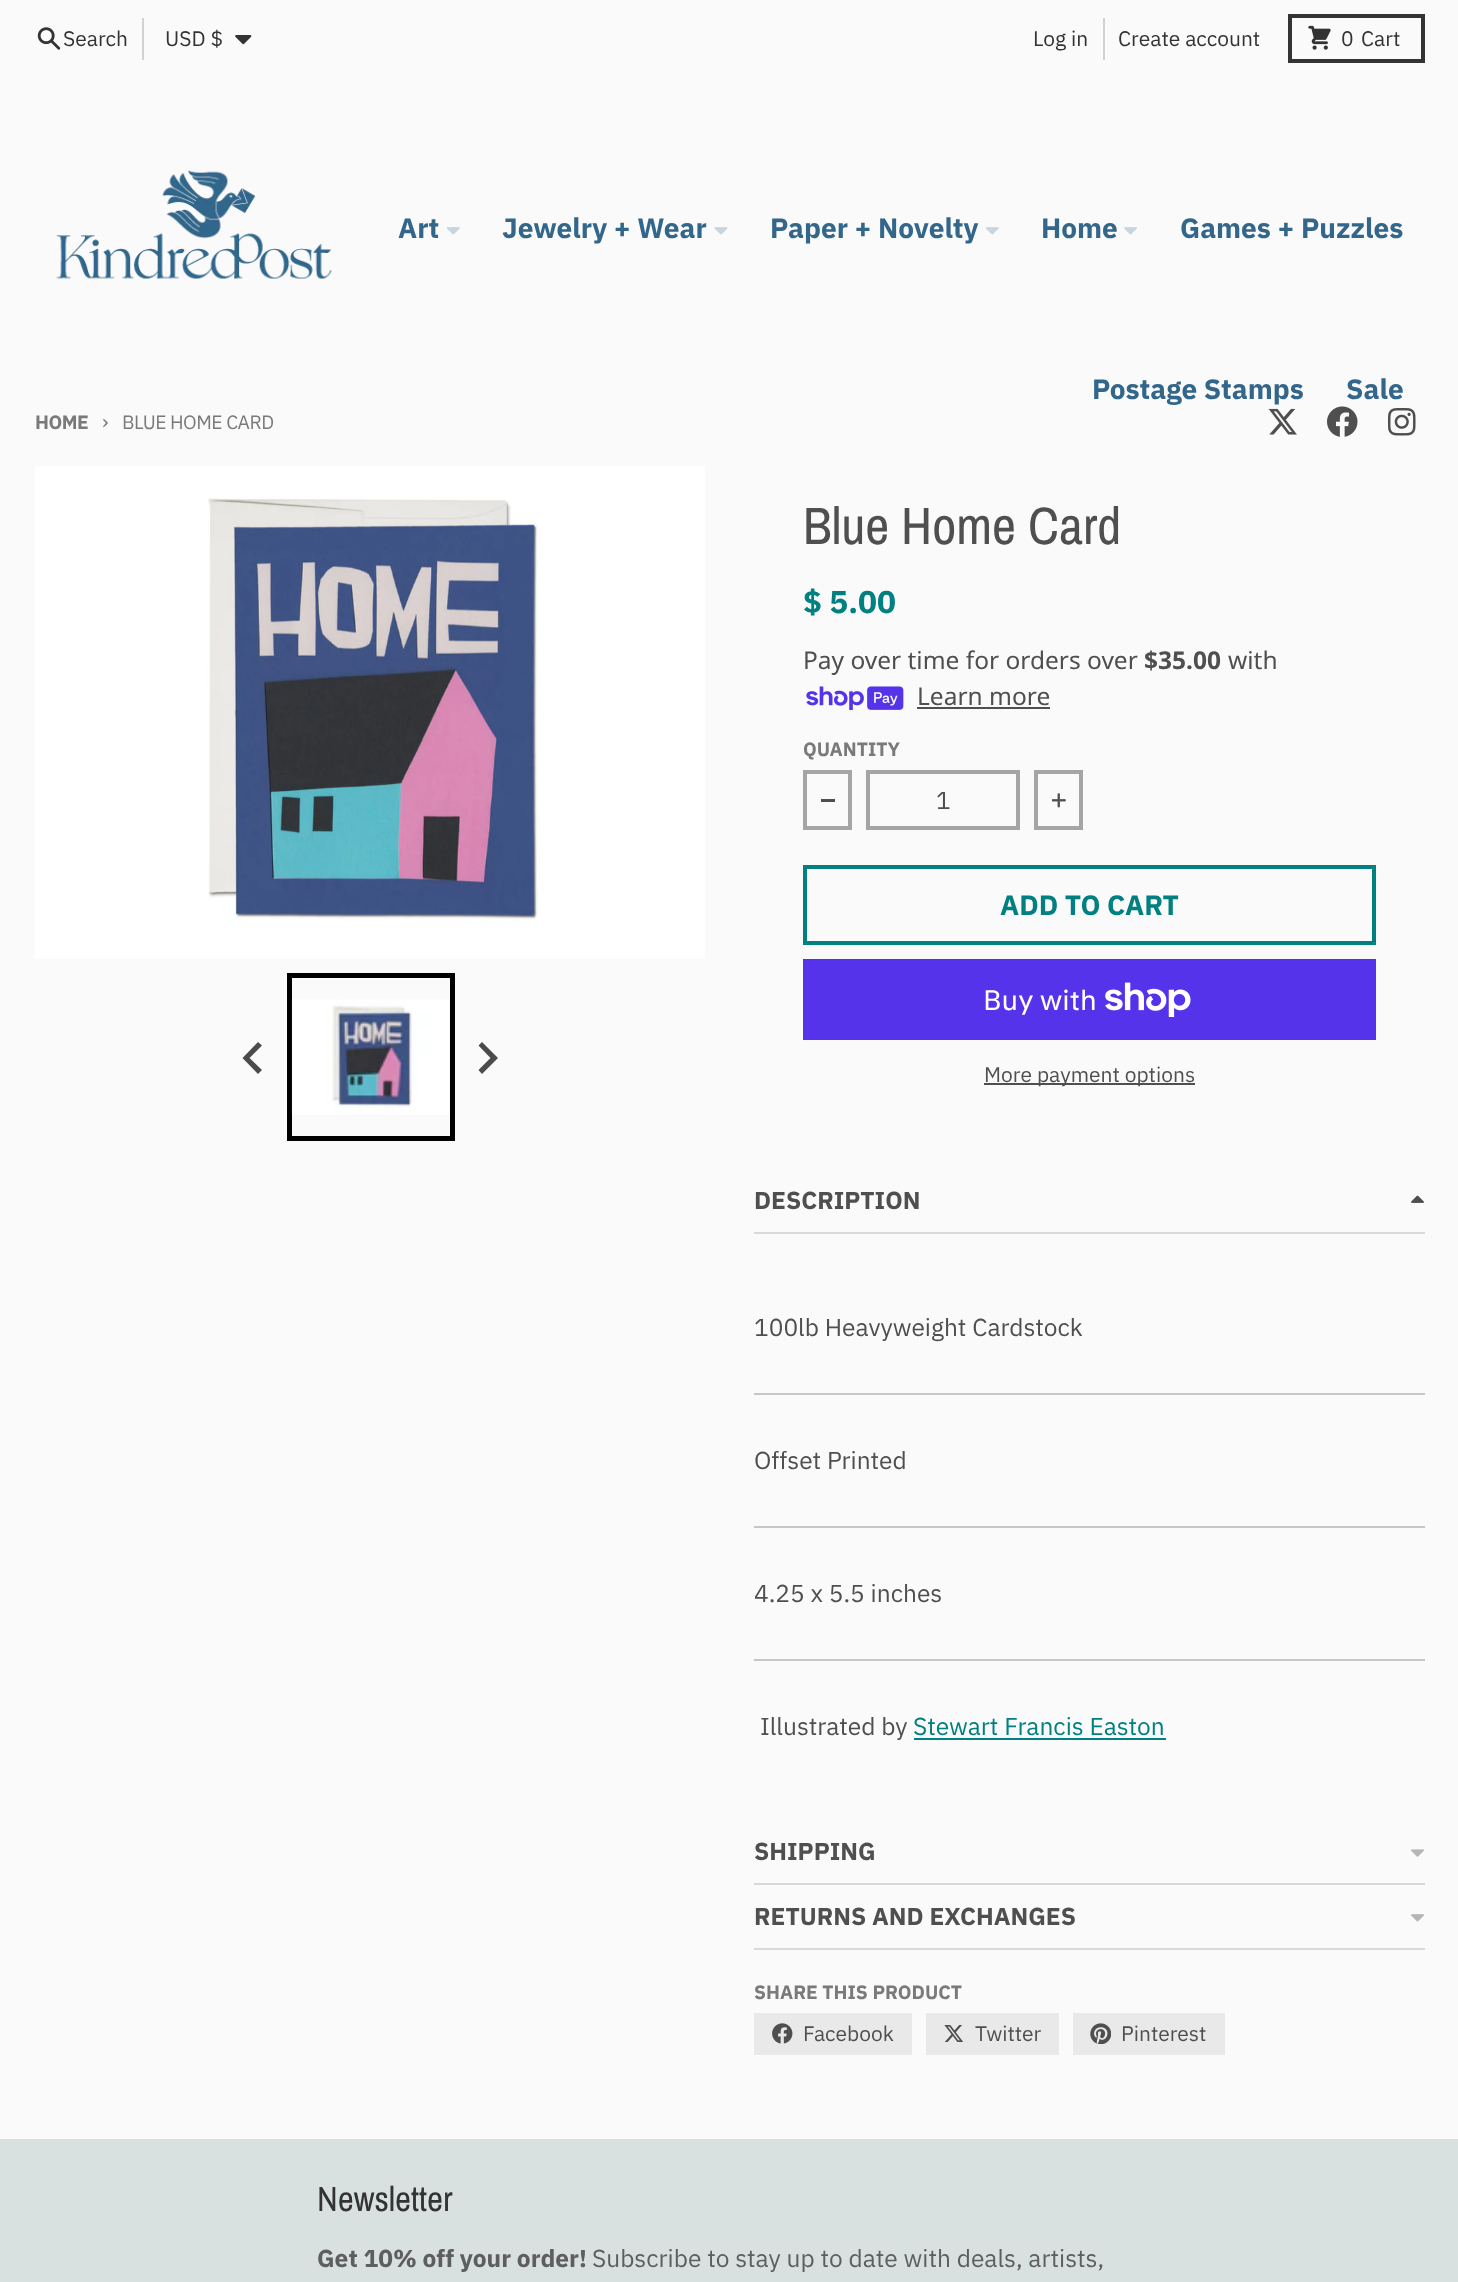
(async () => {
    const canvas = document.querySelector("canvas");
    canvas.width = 1458;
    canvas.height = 2282;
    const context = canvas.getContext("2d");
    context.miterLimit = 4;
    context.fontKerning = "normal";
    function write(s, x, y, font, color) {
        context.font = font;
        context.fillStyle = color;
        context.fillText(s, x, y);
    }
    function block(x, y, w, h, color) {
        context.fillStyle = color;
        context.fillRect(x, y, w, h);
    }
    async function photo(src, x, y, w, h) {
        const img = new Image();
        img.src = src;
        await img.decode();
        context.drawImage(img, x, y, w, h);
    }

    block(0, 0, 1458, 2282, "rgb(217, 225, 224)");
    block(0, 0, 1458, 2139, "rgb(250, 250, 250)");
    await photo("media/1.png", 37, 27, 24, 23);
    write("Search", 63, 46, "21px IBM Plex Sans", "rgb(51, 51, 51)");
    block(142, 18, 2, 42, "rgb(210, 210, 210)");
    write("USD $", 165, 46, "21px IBM Plex Sans", "rgb(51, 51, 51)");
    await photo("media/2.png", 235, 35, 17, 10);
    write("Log in", 1033, 46, "21px IBM Plex Sans", "rgb(51, 51, 51)");
    block(1103, 18, 2, 42, "rgb(210, 210, 210)");
    write("Create account", 1118, 46, "21px IBM Plex Sans", "rgb(51, 51, 51)");
    context.strokeStyle = "rgb(51, 51, 51)";
    context.lineWidth = 4;
    context.strokeRect(1290, 16, 133, 45);
    await photo("media/3.png", 1308, 25, 23, 25);
    write("0", 1341, 46, "21px IBM Plex Sans", "rgb(51, 51, 51)");
    write("Cart", 1361, 46, "21px IBM Plex Sans", "rgb(51, 51, 51)");
    await photo("media/4.png", 56, 170, 276, 109);
    write("Art", 398, 238, "bold 28px IBM Plex Sans", "rgb(51, 102, 139)");
    await photo("media/5.png", 446, 227, 14, 8);
    write("Jewelry + Wear", 502, 238, "bold 28px IBM Plex Sans", "rgb(51, 102, 139)");
    await photo("media/6.png", 714, 227, 14, 8);
    write("Paper + Novelty", 770, 238, "bold 28px IBM Plex Sans", "rgb(51, 102, 139)");
    await photo("media/5.png", 985, 227, 14, 8);
    write("Home", 1041, 238, "bold 28px IBM Plex Sans", "rgb(51, 102, 139)");
    await photo("media/7.png", 1124, 227, 13, 8);
    write("Games + Puzzles", 1180, 238, "bold 28px IBM Plex Sans", "rgb(51, 102, 139)");
    write("Postage Stamps", 1092, 399, "bold 28px IBM Plex Sans", "rgb(51, 102, 139)");
    write("Sale", 1346, 399, "bold 28px IBM Plex Sans", "rgb(51, 102, 139)");
    context.letterSpacing = "-0.5px";
    write("HOME", 35, 429, "bold 19.25px IBM Plex Sans", "rgb(122, 122, 122)");
    write("›", 102, 429, "21px IBM Plex Sans", "rgb(122, 122, 122)");
    write("BLUE HOME CARD", 122, 429, "19.25px IBM Plex Sans", "rgb(122, 122, 122)");
    await photo("media/8.png", 1268, 408, 29, 27);
    await photo("media/9.png", 1327, 406, 31, 31);
    await photo("media/10.png", 1387, 407, 29, 29);
    await photo("media/11.png", 35, 466, 670, 493);
    context.strokeStyle = "rgb(0, 0, 0)";
    context.lineWidth = 5;
    context.strokeRect(289.5, 975.5, 163, 163);
    await photo("media/12.png", 291, 999, 158, 116);
    context.fillStyle = "rgb(75, 75, 75)";
    context.beginPath();
    context.moveTo(258, 1042);
    context.lineTo(262, 1045.5);
    context.lineTo(249.5, 1058);
    context.lineTo(262, 1070);
    context.lineTo(258, 1074);
    context.lineTo(242.5, 1058);
    context.closePath();
    context.fill();
    context.beginPath();
    context.moveTo(482, 1042);
    context.lineTo(478.5, 1045.5);
    context.lineTo(490.5, 1058);
    context.lineTo(478.5, 1070);
    context.lineTo(482, 1074);
    context.lineTo(498, 1058);
    context.closePath();
    context.fill();
    context.letterSpacing = "0px";
    write("Blue Home Card", 803, 544, "52.5px Archivo Narrow", "rgb(79, 79, 79)");
    write("$ 5.00", 803, 613, "bold 31.5px IBM Plex Sans", "rgb(0, 128, 128)");
    write("Pay over time for orders over", 803, 669, "24.5px Noto Sans", "rgb(79, 79, 79)");
    write("$35.00", 1144, 669, "bold 24.5px Noto Sans", "rgb(79, 79, 79)");
    write("with", 1228, 669, "24.5px Noto Sans", "rgb(79, 79, 79)");
    await photo("media/13.png", 806, 686, 98, 24);
    write("Learn more", 917, 705, "24.5px Noto Sans", "rgb(79, 79, 79)");
    block(917, 707, 133, 2, "rgb(79, 79, 79)");
    write("QUANTITY", 803, 756, "bold 19.25px IBM Plex Sans", "rgb(122, 122, 122)");
    context.strokeStyle = "rgb(165, 165, 165)";
    context.lineWidth = 4;
    context.strokeRect(805, 772, 45, 56);
    block(821, 799, 14, 3, "rgb(79, 79, 79)");
    context.strokeStyle = "rgb(164, 164, 164)";
    context.strokeRect(868, 772, 150, 56);
    write("1", 936, 809, "24.5px IBM Plex Sans", "rgb(79, 79, 79)");
    context.strokeStyle = "rgb(165, 165, 165)";
    context.strokeRect(1036, 772, 45, 56);
    await photo("media/14.png", 1052, 793, 14, 15);
    context.strokeStyle = "rgb(0, 128, 128)";
    context.strokeRect(805, 867, 569, 76);
    write("ADD TO CART", 1000, 915, "bold 28px IBM Plex Sans", "rgb(0, 128, 128)");
    block(803, 959, 573, 81, "rgb(84, 51, 235)");
    write("Buy with", 983, 1010, "28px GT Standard", "rgb(255, 255, 255)");
    await photo("media/15.png", 1105, 982, 86, 35);
    block(984, 1083, 211, 2, "rgb(79, 79, 79)");
    write("More payment options", 984, 1082, "21px IBM Plex Sans", "rgb(79, 79, 79)");
    block(754, 1232, 671, 2, "rgb(216, 216, 216)");
    write("DESCRIPTION", 754, 1209, "bold 24.5px IBM Plex Sans", "rgb(79, 79, 79)");
    await photo("media/16.png", 1411, 1195, 13, 8);
    block(754, 1393, 671, 2, "rgb(199, 199, 199)");
    write("100lb Heavyweight Cardstock", 754, 1336, "24.5px IBM Plex Sans", "rgb(79, 79, 79)");
    block(754, 1526, 671, 2, "rgb(199, 199, 199)");
    write("Offset Printed", 754, 1469, "24.5px IBM Plex Sans", "rgb(79, 79, 79)");
    block(754, 1659, 671, 2, "rgb(199, 199, 199)");
    write("4.25 x 5.5 inches", 754, 1602, "24.5px IBM Plex Sans", "rgb(79, 79, 79)");
    write("Illustrated by", 760, 1735, "24.5px IBM Plex Sans", "rgb(79, 79, 79)");
    write("Stewart Francis Easton", 913, 1735, "24.5px IBM Plex Sans", "rgb(0, 128, 128)");
    block(914, 1738, 252, 2, "rgb(0, 128, 128)");
    block(754, 1883, 671, 2, "rgb(216, 216, 216)");
    write("SHIPPING", 754, 1860, "bold 24.5px IBM Plex Sans", "rgb(79, 79, 79)");
    await photo("media/17.png", 1411, 1849, 13, 8);
    block(754, 1948, 671, 2, "rgb(216, 216, 216)");
    write("RETURNS AND EXCHANGES", 754, 1925, "bold 24.5px IBM Plex Sans", "rgb(79, 79, 79)");
    await photo("media/18.png", 1411, 1914, 13, 8);
    write("SHARE THIS PRODUCT", 754, 1999, "bold 19.25px IBM Plex Sans", "rgb(122, 122, 122)");
    block(754, 2013, 158, 42, "rgb(233, 233, 233)");
    await photo("media/19.png", 772, 2023, 21, 21);
    write("Facebook", 803, 2041, "21px IBM Plex Sans", "rgb(79, 79, 79)");
    block(926, 2013, 133, 42, "rgb(233, 233, 233)");
    await photo("media/20.png", 944, 2025, 20, 17);
    write("Twitter", 975, 2041, "21px IBM Plex Sans", "rgb(79, 79, 79)");
    block(1073, 2013, 152, 42, "rgb(233, 233, 233)");
    await photo("media/21.png", 1090, 2023, 21, 21);
    write("Pinterest", 1121, 2041, "21px IBM Plex Sans", "rgb(79, 79, 79)");
    write("Newsletter", 317, 2211, "35px Archivo Narrow", "rgb(51, 51, 51)");
    write("Get 10% off your order!", 317, 2267, "bold 24.5px IBM Plex Sans", "rgb(93, 95, 94)");
    write("Subscribe to stay up to date with deals, artists,", 592, 2267, "24.5px IBM Plex Sans", "rgb(93, 95, 94)");
})();
